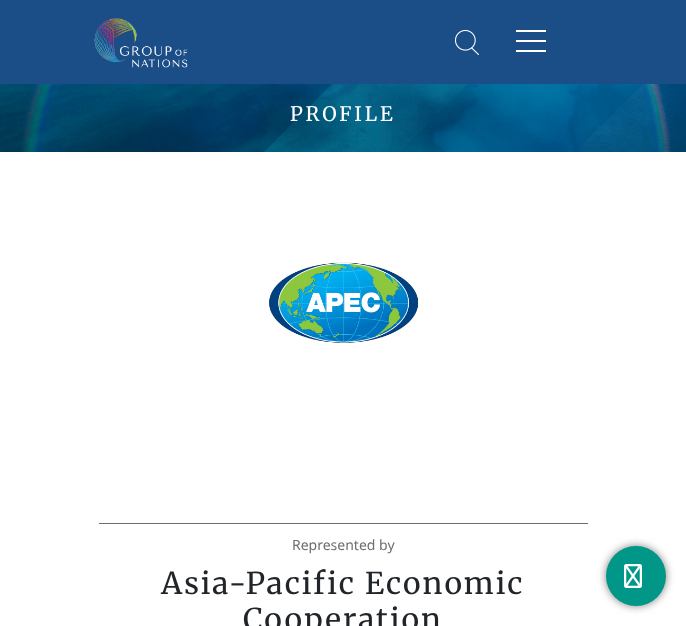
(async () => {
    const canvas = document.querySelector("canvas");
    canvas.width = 686;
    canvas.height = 626;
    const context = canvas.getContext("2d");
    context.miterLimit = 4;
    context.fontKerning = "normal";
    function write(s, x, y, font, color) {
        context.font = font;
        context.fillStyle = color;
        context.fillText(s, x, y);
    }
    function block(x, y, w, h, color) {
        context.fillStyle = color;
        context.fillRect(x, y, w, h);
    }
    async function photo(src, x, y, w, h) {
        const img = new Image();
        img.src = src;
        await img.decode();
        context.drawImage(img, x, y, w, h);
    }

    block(0, 0, 686, 626, "rgb(255, 255, 255)");
    block(0, 0, 686, 84, "rgb(27, 77, 135)");
    await photo("media/1.png", 94, 18, 94, 50);
    await photo("media/2.png", 455, 30, 24, 25);
    block(516, 30, 30, 2, "rgb(255, 255, 255)");
    block(516, 40, 30, 2, "rgb(255, 255, 255)");
    block(516, 50, 30, 2, "rgb(255, 255, 255)");
    await photo("media/3.png", 0, 84, 686, 68);
    context.letterSpacing = "3px";
    write("PROFILE", 290, 121, "20px Merriweather", "rgb(255, 255, 255)");
    await photo("media/4.png", 269, 262, 149, 81);
    block(99, 523, 489, 1, "rgb(109, 108, 108)");
    context.letterSpacing = "0px";
    write("Represented by", 292, 550, "14px Noto Sans", "rgb(111, 110, 111)");
    context.letterSpacing = "2px";
    write("Asia-Pacific Economic", 161, 594, "30px Merriweather", "rgb(33, 37, 41)");
    write("Cooperation", 243, 630, "30px Merriweather", "rgb(33, 37, 41)");
    context.fillStyle = "rgba(0, 0, 0, 0.5)";
    context.filter = "blur(4px)";
    context.beginPath();
    context.roundRect(606, 546, 60, 60, 30);
    context.fill();
    context.filter = "none";
    context.fillStyle = "rgb(0, 150, 136)";
    context.beginPath();
    context.arc(636, 576, 30, 0, Math.PI * 2);
    context.fill();
    await photo("media/5.png", 624, 564, 18, 24);
})();
